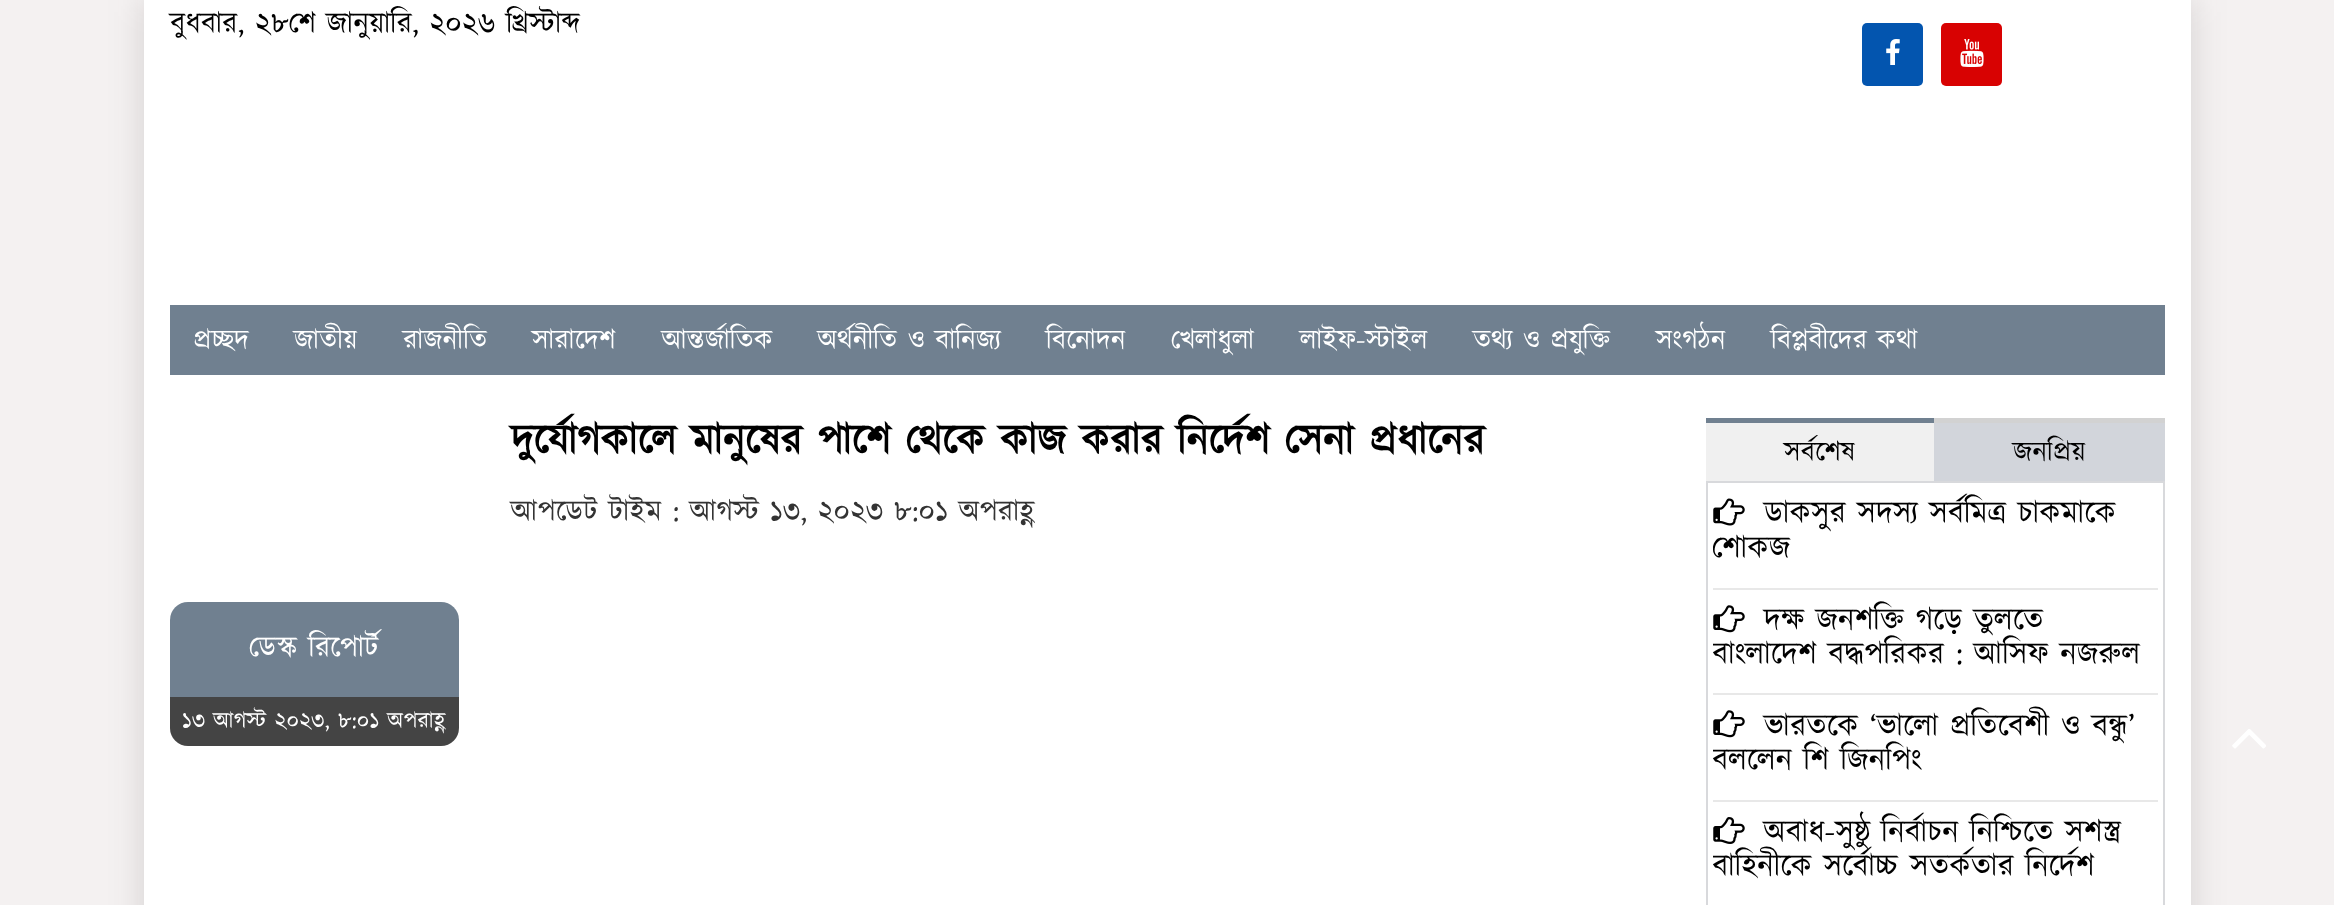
(async () => {
    const canvas = document.querySelector("canvas");
    canvas.width = 2334;
    canvas.height = 905;
    const context = canvas.getContext("2d");
    context.miterLimit = 4;
    context.fontKerning = "normal";
    function write(s, x, y, font, color) {
        context.font = font;
        context.fillStyle = color;
        context.fillText(s, x, y);
    }
    function block(x, y, w, h, color) {
        context.fillStyle = color;
        context.fillRect(x, y, w, h);
    }
    function card(x, y, w, h, r, color) {
        context.fillStyle = color;
        context.beginPath();
        context.roundRect(x, y, w, h, r);
        context.fill();
    }
    async function photo(src, x, y, w, h) {
        const img = new Image();
        img.src = src;
        await img.decode();
        context.drawImage(img, x, y, w, h);
    }

    block(0, 0, 2334, 905, "rgb(244, 241, 241)");
    context.fillStyle = "rgba(47, 44, 44, 0.16)";
    context.filter = "blur(17.5px)";
    context.beginPath();
    context.rect(144, 0, 2047, 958);
    context.fill();
    context.filter = "none";
    block(144, 0, 2047, 905, "rgb(255, 255, 255)");
    write("বুধবার, ২৮শে জানুয়ারি, ২০২৬ খ্রিস্টাব্দ", 170, 33, "29.75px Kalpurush", "rgb(0, 0, 0)");
    card(1862, 23, 61, 63, 5, "rgb(3, 85, 175)");
    await photo("media/1.png", 1886, 39, 14, 26);
    card(1941, 23, 61, 63, 5, "rgb(216, 2, 2)");
    await photo("media/2.png", 1960, 39, 24, 28);
    block(170, 305, 1995, 70, "rgb(112, 128, 144)");
    write("প্রচ্ছদ", 193, 349, "28px Kalpurush", "rgb(255, 255, 255)");
    write("জাতীয়", 294, 349, "28px Kalpurush", "rgb(255, 255, 255)");
    write("রাজনীতি", 403, 349, "28px Kalpurush", "rgb(255, 255, 255)");
    write("সারাদেশ", 532, 349, "28px Kalpurush", "rgb(255, 255, 255)");
    write("আন্তর্জাতিক", 662, 349, "28px Kalpurush", "rgb(255, 255, 255)");
    write("অর্থনীতি ও বানিজ্য", 818, 349, "28px Kalpurush", "rgb(255, 255, 255)");
    write("বিনোদন", 1046, 349, "28px Kalpurush", "rgb(255, 255, 255)");
    write("খেলাধুলা", 1171, 349, "28px Kalpurush", "rgb(255, 255, 255)");
    write("লাইফ-স্টাইল", 1300, 349, "28px Kalpurush", "rgb(255, 255, 255)");
    write("তথ্য ও প্রযুক্তি", 1473, 349, "28px Kalpurush", "rgb(255, 255, 255)");
    write("সংগঠন", 1656, 349, "28px Kalpurush", "rgb(255, 255, 255)");
    write("বিপ্লবীদের কথা", 1771, 349, "28px Kalpurush", "rgb(255, 255, 255)");
    context.fillStyle = "rgb(112, 128, 144)";
    context.beginPath();
    context.roundRect(170, 602, 289, 95, [18, 18, 0, 0]);
    context.fill();
    write("ডেস্ক রিপোর্ট", 249, 657, "29.75px Kalpurush", "rgb(255, 255, 255)");
    context.fillStyle = "rgb(68, 68, 68)";
    context.beginPath();
    context.roundRect(170, 697, 289, 49, [0, 0, 18, 18]);
    context.fill();
    write("১৩ আগস্ট ২০২৩, ৮:০১ অপরাহ্ণ", 182, 728, "22.75px Kalpurush", "rgb(255, 255, 255)");
    write("দুর্যোগকালে মানুষের পাশে থেকে কাজ করার নির্দেশ সেনা প্রধানের", 511, 454, "bold 42px Kalpurush", "rgb(0, 0, 0)");
    write("আপডেট টাইম : আগস্ট ১৩, ২০২৩ ৮:০১ অপরাহ্ণ", 511, 521, "29.75px Kalpurush", "rgb(51, 51, 51)");
    block(1934, 423, 231, 58, "rgb(210, 213, 219)");
    block(1706, 423, 228, 58, "rgb(240, 240, 240)");
    block(1706, 418, 228, 5, "rgb(112, 128, 144)");
    write("সর্বশেষ", 1784, 461, "28px Kalpurush", "rgb(0, 0, 0)");
    block(1934, 418, 231, 5, "rgb(210, 210, 210)");
    write("জনপ্রিয়", 2013, 461, "28px Kalpurush", "rgb(0, 0, 0)");
    context.strokeStyle = "rgb(216, 217, 220)";
    context.lineWidth = 2;
    context.strokeRect(1707, 482, 457, 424);
    block(1713, 588, 445, 2, "rgb(232, 232, 232)");
    await photo("media/3.png", 1713, 498, 32, 28);
    write("ডাকসুর সদস্য সর্বমিত্র চাকমাকে", 1764, 523, "31.5px Kalpurush", "rgb(0, 0, 0)");
    context.save();
    context.beginPath();
    context.rect(1713, 483, 445, 105);
    context.clip();
    write("শোকজ", 1712, 558, "31.5px Kalpurush", "rgb(0, 0, 0)");
    context.restore();
    block(1713, 693, 445, 2, "rgb(232, 232, 232)");
    await photo("media/4.png", 1713, 605, 32, 28);
    write("দক্ষ জনশক্তি গড়ে তুলতে", 1764, 630, "31.5px Kalpurush", "rgb(0, 0, 0)");
    context.save();
    context.beginPath();
    context.rect(1713, 590, 445, 103);
    context.clip();
    write("বাংলাদেশ বদ্ধপরিকর : আসিফ নজরুল", 1712, 664, "31.5px Kalpurush", "rgb(0, 0, 0)");
    context.restore();
    block(1713, 800, 445, 2, "rgb(232, 232, 232)");
    await photo("media/4.png", 1713, 710, 32, 28);
    write("ভারতকে ‘ভালো প্রতিবেশী ও বন্ধু’", 1764, 736, "31.5px Kalpurush", "rgb(0, 0, 0)");
    context.save();
    context.beginPath();
    context.rect(1713, 695, 445, 105);
    context.clip();
    write("বললেন শি জিনপিং", 1712, 770, "31.5px Kalpurush", "rgb(0, 0, 0)");
    context.restore();
    await photo("media/5.png", 1713, 817, 32, 27);
    write("অবাধ-সুষ্ঠু নির্বাচন নিশ্চিতে সশস্ত্র", 1764, 842, "31.5px Kalpurush", "rgb(0, 0, 0)");
    context.save();
    context.beginPath();
    context.rect(1713, 802, 445, 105);
    context.clip();
    write("বাহিনীকে সর্বোচ্চ সতর্কতার নির্দেশ", 1712, 876, "31.5px Kalpurush", "rgb(0, 0, 0)");
    context.restore();
    await photo("media/6.png", 2232, 729, 34, 20);
})();
